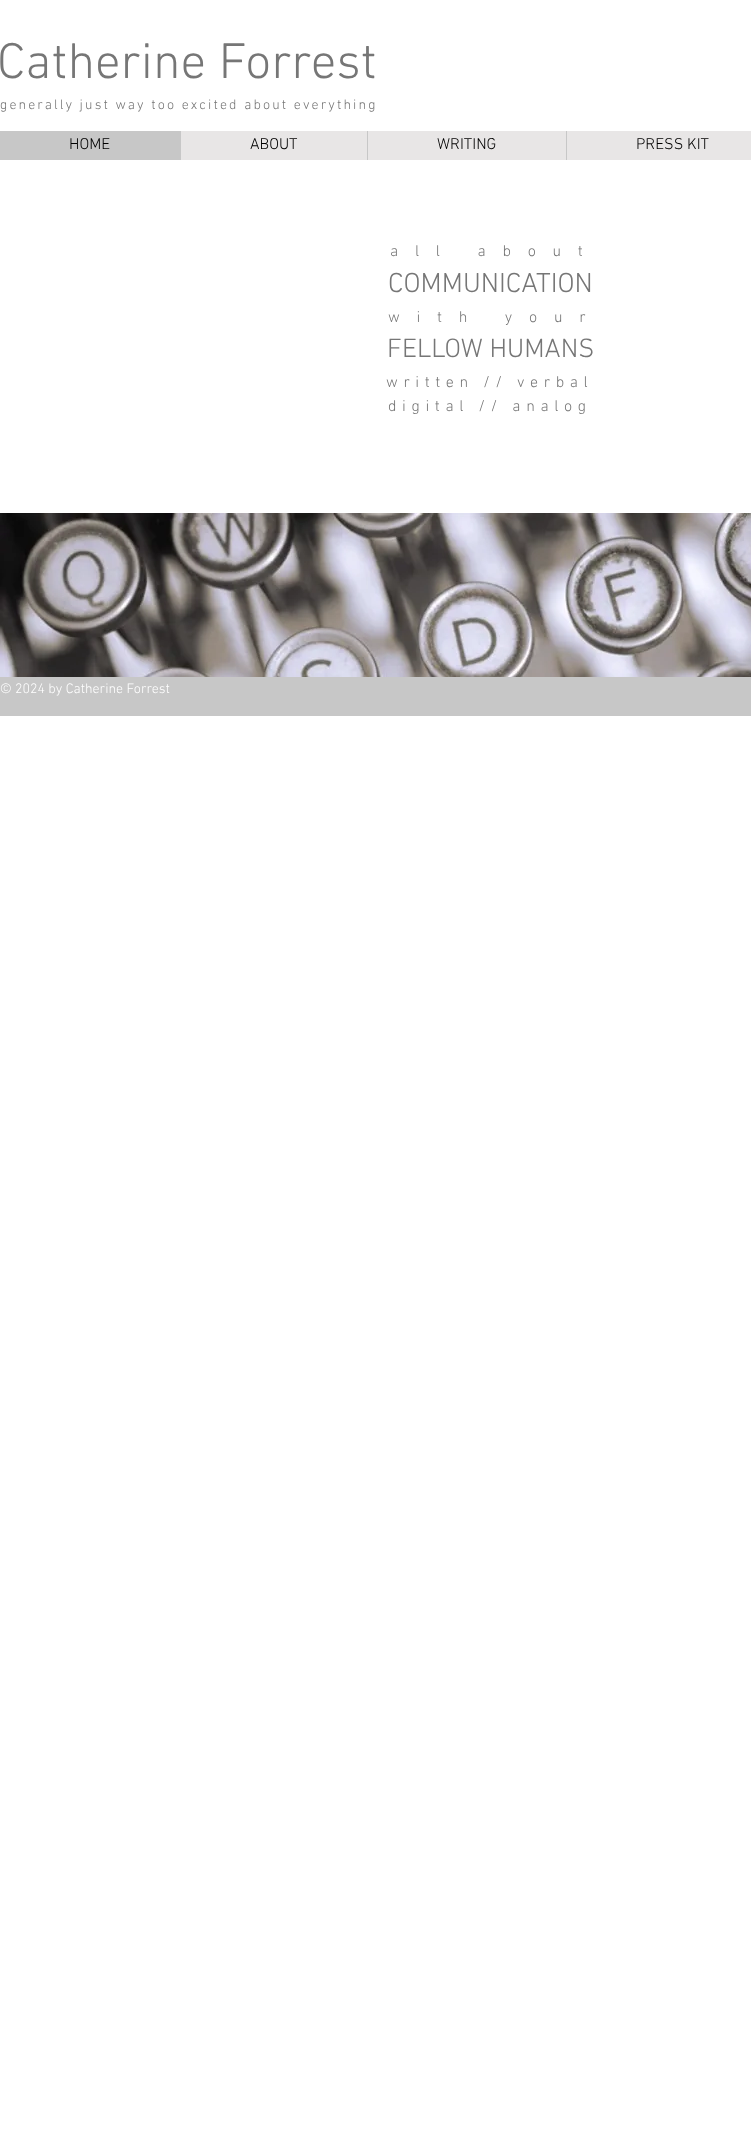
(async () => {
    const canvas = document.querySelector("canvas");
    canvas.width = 751;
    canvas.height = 2152;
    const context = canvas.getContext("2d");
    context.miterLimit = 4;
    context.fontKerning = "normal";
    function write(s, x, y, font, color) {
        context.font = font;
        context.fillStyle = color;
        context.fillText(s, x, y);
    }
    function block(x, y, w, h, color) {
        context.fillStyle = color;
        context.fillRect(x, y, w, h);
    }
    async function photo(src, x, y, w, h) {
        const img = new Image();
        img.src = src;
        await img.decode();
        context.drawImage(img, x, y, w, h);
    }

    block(0, 0, 751, 2152, "rgb(255, 255, 255)");
    write("Catherine Forrest", -3, 78, "300 51px 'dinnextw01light'", "rgb(118, 118, 118)");
    context.letterSpacing = "2.1px";
    write("generally just way too excited about everything", 0, 109, "300 14px 'dinnextw01light'", "rgb(118, 118, 118)");
    block(181, 131, 570, 29, "rgb(232, 230, 230)");
    block(0, 131, 181, 29, "rgb(199, 199, 199)");
    context.letterSpacing = "0px";
    write("HOME", 69, 149, "300 16px 'dinnextw01light'", "rgb(0, 0, 0)");
    write("ABOUT", 250, 149, "300 16px 'dinnextw01light'", "rgb(0, 0, 0)");
    block(367, 131, 1, 29, "rgb(199, 199, 199)");
    write("WRITING", 437, 149, "300 16px 'dinnextw01light'", "rgb(0, 0, 0)");
    block(566, 131, 1, 29, "rgb(199, 199, 199)");
    write("PRESS KIT", 636, 149, "300 16px 'dinnextw01light'", "rgb(0, 0, 0)");
    context.letterSpacing = "6.4px";
    write("a l l   a b o u t", 390, 256, "300 16px 'dinnextw01light'", "rgb(118, 118, 118)");
    context.letterSpacing = "0px";
    write("COMMUNICATION", 388, 292, "300 28px 'dinnextw01light'", "rgb(118, 118, 118)");
    context.letterSpacing = "6.4px";
    write("w i t h   y o u r", 388, 322, "300 16px 'dinnextw01light'", "rgb(118, 118, 118)");
    context.letterSpacing = "0px";
    write("FELLOW HUMANS", 387, 357, "300 27px 'dinnextw01light'", "rgb(118, 118, 118)");
    context.letterSpacing = "5.6px";
    write("written // verbal", 386, 387, "300 16px 'dinnextw01light'", "rgb(118, 118, 118)");
    write("digital // analog", 388, 411, "300 16px 'dinnextw01light'", "rgb(118, 118, 118)");
    await photo("media/1.png", 0, 513, 751, 164);
    block(0, 677, 751, 39, "rgb(199, 199, 199)");
    context.letterSpacing = "0px";
    write("© 2024 by Catherine Forrest", 0, 693, "300 14px 'dinnextw01light'", "rgb(255, 255, 255)");
})();
